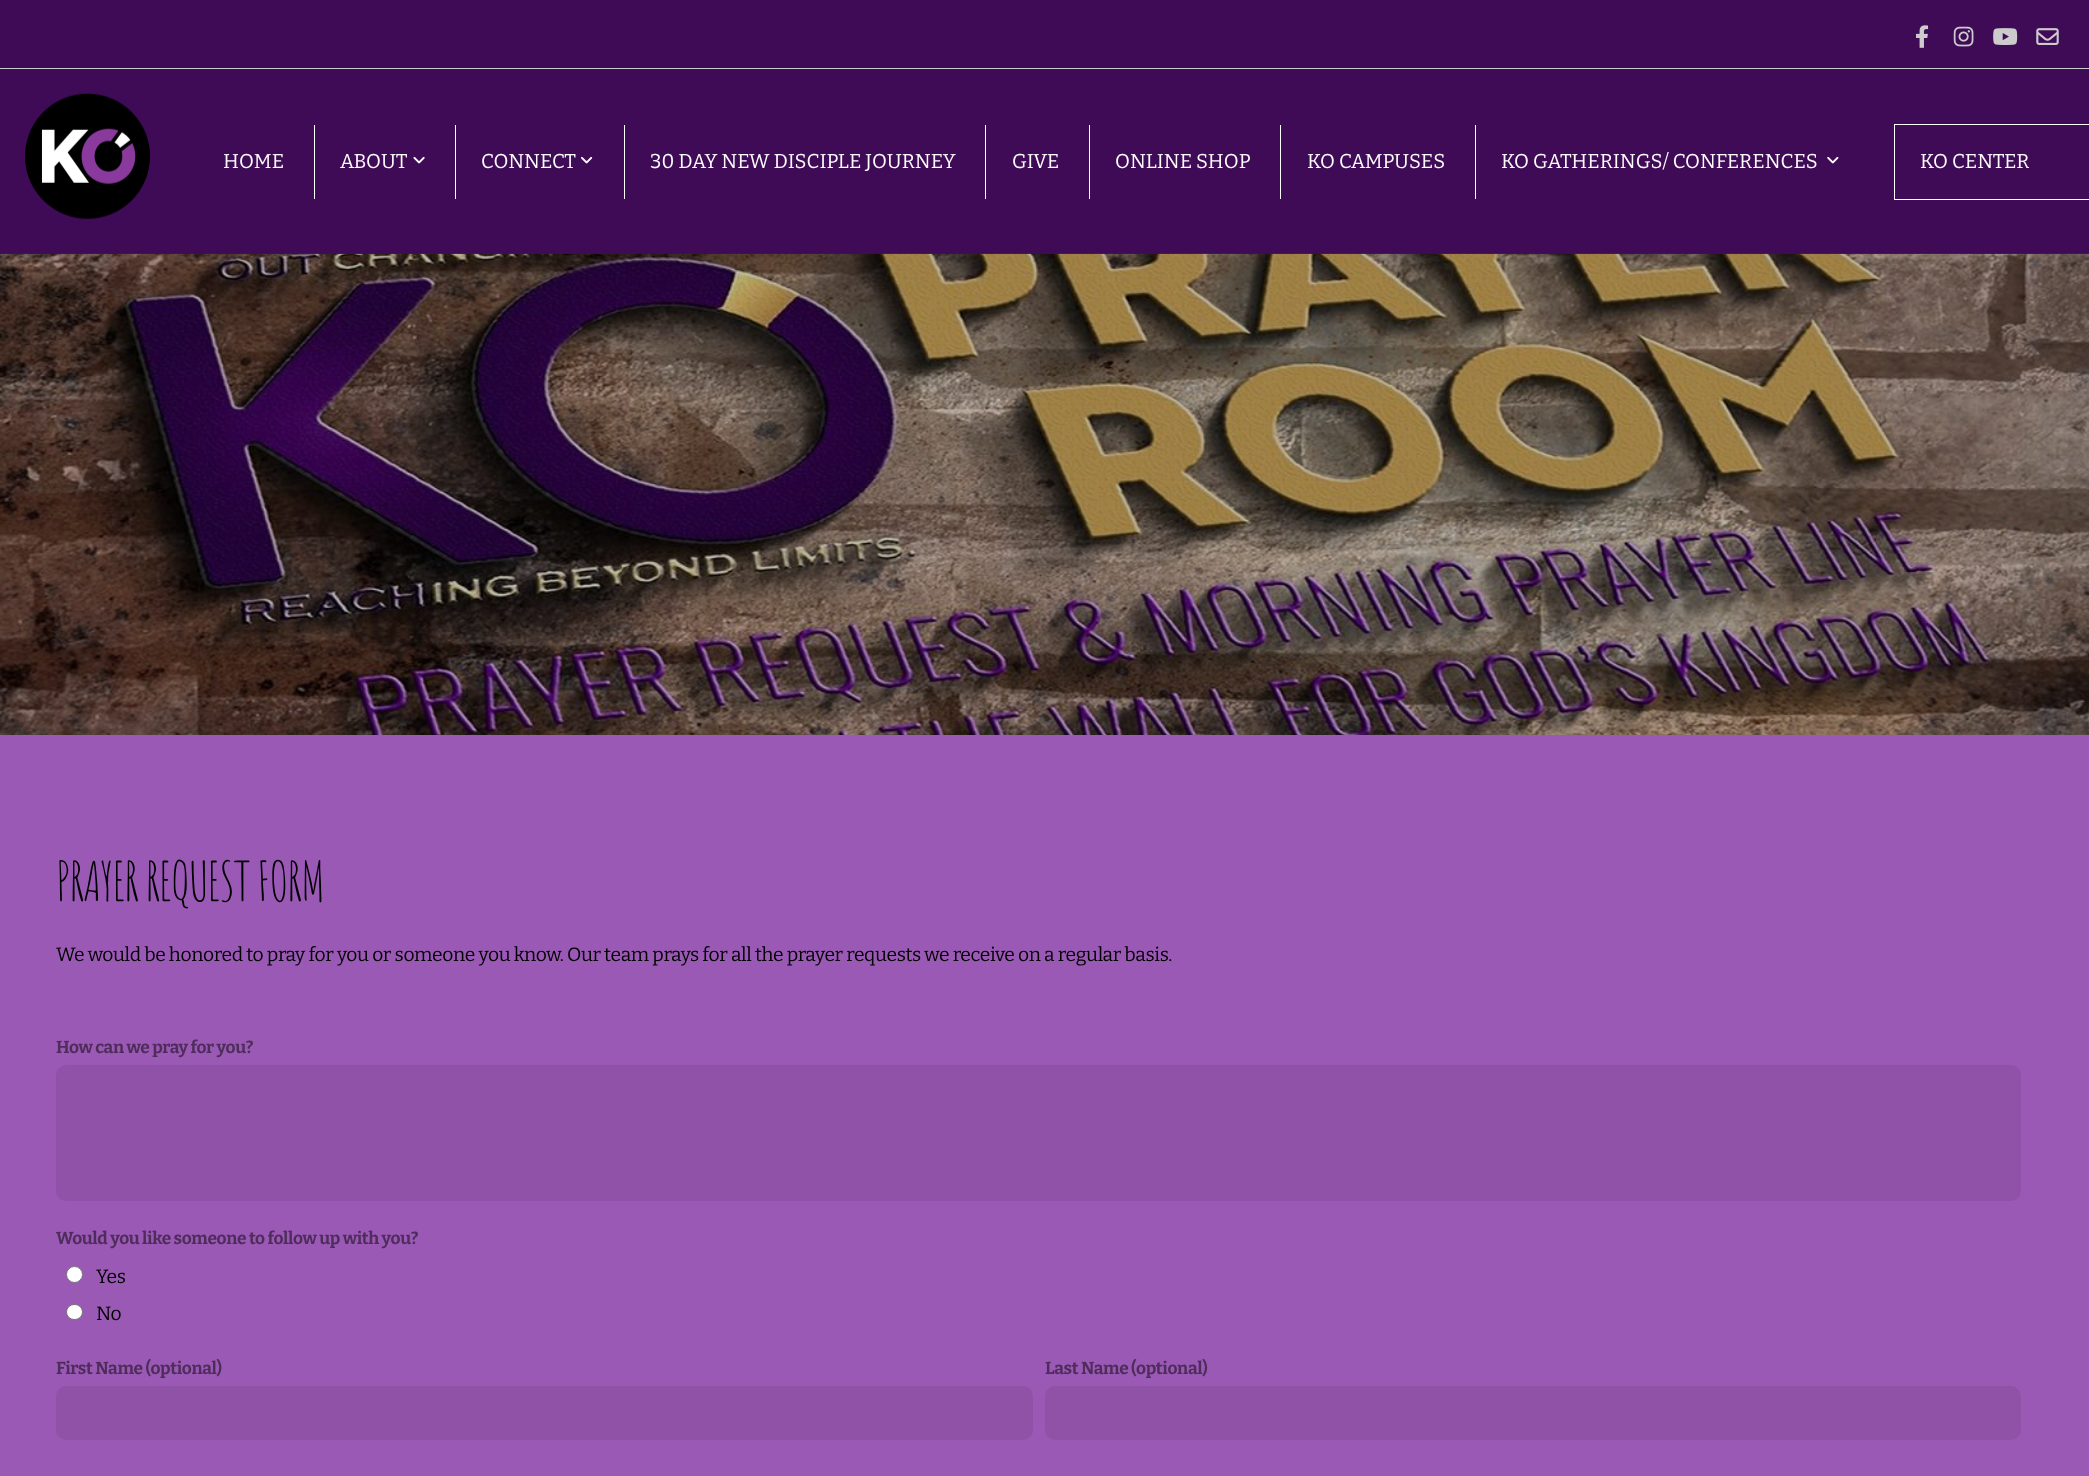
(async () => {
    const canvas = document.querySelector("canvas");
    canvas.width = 2089;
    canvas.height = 1476;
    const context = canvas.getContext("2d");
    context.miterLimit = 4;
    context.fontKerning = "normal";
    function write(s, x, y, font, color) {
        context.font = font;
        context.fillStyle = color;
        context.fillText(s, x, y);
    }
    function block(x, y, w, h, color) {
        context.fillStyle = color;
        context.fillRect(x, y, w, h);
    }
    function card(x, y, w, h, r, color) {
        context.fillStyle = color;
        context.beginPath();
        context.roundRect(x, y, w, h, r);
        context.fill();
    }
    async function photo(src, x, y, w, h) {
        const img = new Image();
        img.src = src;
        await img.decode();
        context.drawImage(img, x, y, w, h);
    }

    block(0, 0, 2089, 1476, "rgb(64, 11, 86)");
    block(0, 68, 2089, 1, "rgb(204, 204, 204)");
    await photo("media/1.png", 1916, 25, 13, 23);
    await photo("media/2.png", 1953, 26, 21, 21);
    await photo("media/3.png", 1993, 28, 25, 17);
    await photo("media/4.png", 2036, 28, 23, 17);
    await photo("media/5.png", 25, 93, 125, 126);
    write("HOME", 223, 168, "20px Bitter", "rgb(255, 255, 255)");
    block(314, 125, 1, 74, "rgb(255, 255, 255)");
    write("ABOUT", 340, 168, "20px Bitter", "rgb(255, 255, 255)");
    await photo("media/6.png", 413, 156, 12, 8);
    block(455, 125, 1, 74, "rgb(255, 255, 255)");
    write("CONNECT", 481, 168, "20px Bitter", "rgb(255, 255, 255)");
    await photo("media/7.png", 581, 156, 12, 8);
    block(624, 125, 1, 74, "rgb(255, 255, 255)");
    write("30 DAY NEW DISCIPLE JOURNEY", 650, 168, "20px Bitter", "rgb(255, 255, 255)");
    block(985, 125, 1, 74, "rgb(255, 255, 255)");
    write("GIVE", 1012, 168, "20px Bitter", "rgb(255, 255, 255)");
    block(1089, 125, 1, 74, "rgb(255, 255, 255)");
    write("ONLINE SHOP", 1115, 168, "20px Bitter", "rgb(255, 255, 255)");
    block(1280, 125, 1, 74, "rgb(255, 255, 255)");
    write("KO CAMPUSES", 1307, 168, "20px Bitter", "rgb(255, 255, 255)");
    block(1475, 125, 1, 74, "rgb(255, 255, 255)");
    write("KO GATHERINGS/ CONFERENCES", 1501, 168, "20px Bitter", "rgb(255, 255, 255)");
    await photo("media/8.png", 1827, 156, 12, 8);
    context.strokeStyle = "rgb(255, 255, 255)";
    context.strokeRect(1894.5, 124.5, 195, 75);
    write("KO CENTER", 1920, 168, "20px Bitter", "rgb(255, 255, 255)");
    await photo("media/9.png", 0, 253, 2089, 482);
    block(0, 735, 2089, 741, "rgb(155, 89, 182)");
    context.letterSpacing = "-1.6px";
    write("PRAYER REQUEST FORM", 56, 901, "53.75px Amatic SC", "rgb(0, 0, 0)");
    context.letterSpacing = "-0.35px";
    write("We would be honored to pray for you or someone you know. Our team prays for all the prayer requests we receive on a regular basis.", 56, 961, "19.25px Bitter", "rgb(0, 0, 0)");
    write("How can we pray for you?", 56, 1053, "bold 17.3px Bitter", "rgb(78, 45, 91)");
    card(56, 1065, 1965, 136, 10, "rgb(143, 82, 168)");
    write("Would you like someone to follow up with you?", 56, 1244, "bold 17.3px Bitter", "rgb(78, 45, 91)");
    context.fillStyle = "rgb(255, 255, 255)";
    context.beginPath();
    context.arc(74.5, 1274.5, 8, 0, Math.PI * 2);
    context.fill();
    context.strokeStyle = "rgb(118, 118, 118)";
    context.stroke();
    write("Yes", 96, 1283, "19.25px Bitter", "rgb(0, 0, 0)");
    context.fillStyle = "rgb(255, 255, 255)";
    context.beginPath();
    context.roundRect(66.5, 1304.5, 16, 15, 7.5);
    context.fill();
    context.stroke();
    write("No", 96, 1320, "19.25px Bitter", "rgb(0, 0, 0)");
    write("First Name (optional)", 56, 1374, "bold 17.3px Bitter", "rgb(78, 45, 91)");
    card(56, 1386, 977, 54, 10, "rgb(143, 82, 167)");
    write("Last Name (optional)", 1045, 1374, "bold 17.3px Bitter", "rgb(78, 45, 91)");
    card(1045, 1386, 976, 54, 10, "rgb(143, 82, 167)");
})();
